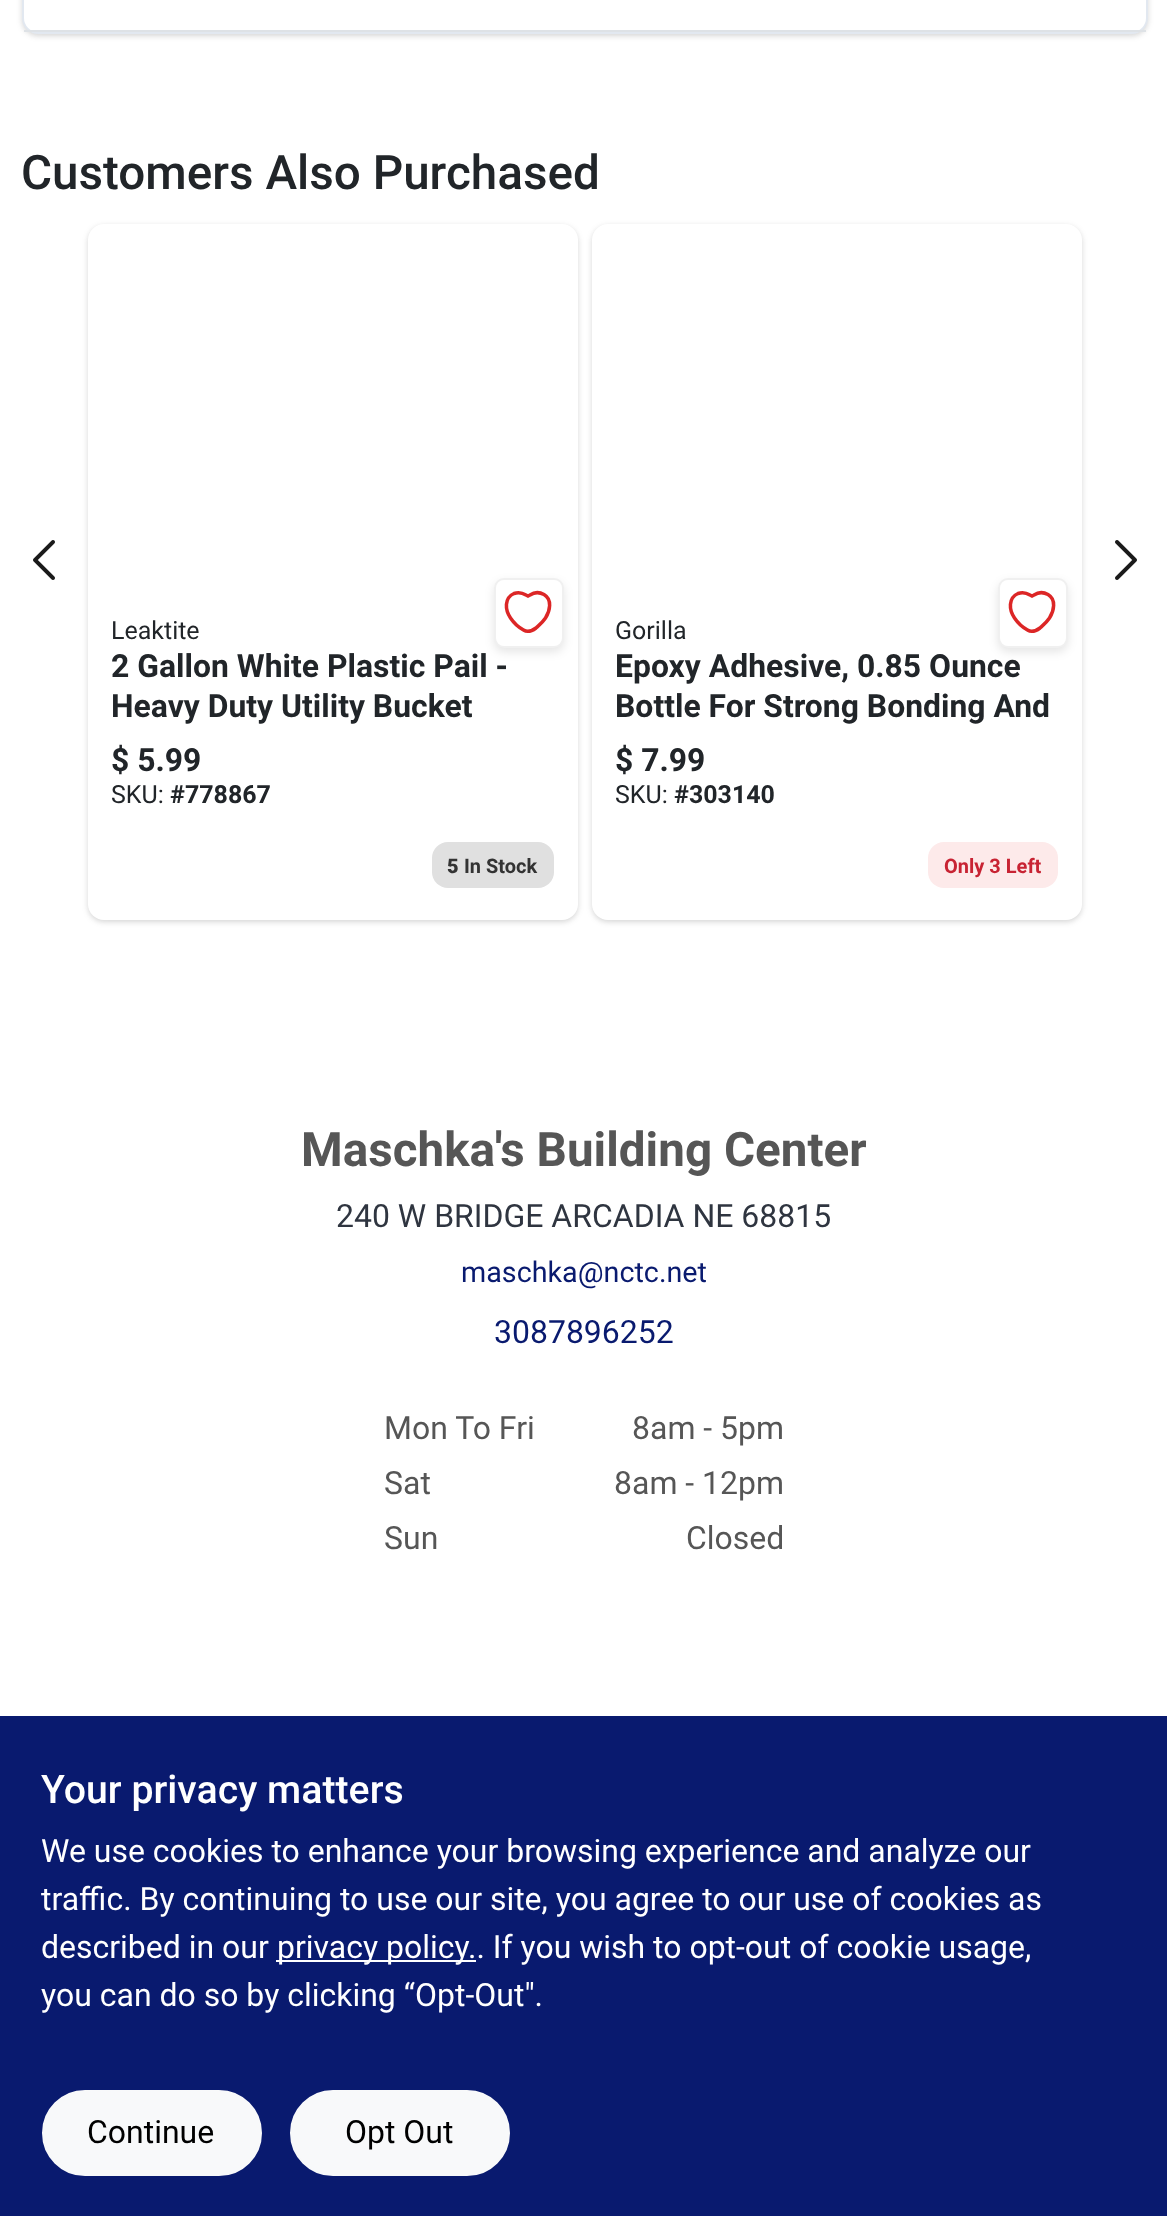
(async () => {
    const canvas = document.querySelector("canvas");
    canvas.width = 1167;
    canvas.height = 2216;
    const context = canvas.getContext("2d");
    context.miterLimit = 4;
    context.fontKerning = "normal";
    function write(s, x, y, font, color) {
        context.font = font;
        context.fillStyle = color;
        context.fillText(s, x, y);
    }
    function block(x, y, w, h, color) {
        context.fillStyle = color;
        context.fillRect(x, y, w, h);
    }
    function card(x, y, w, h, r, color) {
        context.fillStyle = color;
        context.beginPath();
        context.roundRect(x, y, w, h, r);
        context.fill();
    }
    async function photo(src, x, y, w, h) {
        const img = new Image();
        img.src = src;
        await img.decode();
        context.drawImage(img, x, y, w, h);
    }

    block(0, 0, 1167, 2216, "rgb(255, 255, 255)");
    context.fillStyle = "rgba(0, 0, 0, 0.06)";
    context.filter = "blur(2px)";
    context.beginPath();
    context.roundRect(22, -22, 1126, 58, 16);
    context.fill();
    context.filter = "none";
    context.fillStyle = "rgba(0, 0, 0, 0.1)";
    context.filter = "blur(3px)";
    context.beginPath();
    context.roundRect(22, -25, 1126, 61, 16);
    context.fill();
    context.filter = "none";
    context.fillStyle = "rgb(255, 255, 255)";
    context.beginPath();
    context.roundRect(23, -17, 1124, 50, 15);
    context.fill();
    context.strokeStyle = "rgb(226, 232, 240)";
    context.lineWidth = 2;
    context.stroke();
    block(24, 30, 1122, 2, "rgb(222, 226, 230)");
    write("Customers Also Purchased", 21, 189, "500 47.6px Roboto", "rgb(33, 37, 41)");
    await photo("media/1.png", 33, 540, 22, 40);
    await photo("media/2.png", 1115, 540, 22, 40);
    context.fillStyle = "rgba(0, 0, 0, 0.06)";
    context.filter = "blur(2px)";
    context.beginPath();
    context.roundRect(88, 226, 490, 696, 16);
    context.fill();
    context.filter = "none";
    context.fillStyle = "rgba(0, 0, 0, 0.1)";
    context.filter = "blur(3px)";
    context.beginPath();
    context.roundRect(88, 226, 490, 696, 16);
    context.fill();
    context.filter = "none";
    card(88, 224, 490, 696, 16, "rgb(255, 255, 255)");
    context.fillStyle = "rgba(0, 0, 0, 0.1)";
    context.filter = "blur(5px)";
    context.beginPath();
    context.roundRect(494, 582, 70, 70, 10);
    context.fill();
    context.filter = "none";
    context.fillStyle = "rgb(255, 255, 255)";
    context.beginPath();
    context.roundRect(495, 579, 68, 68, 9);
    context.fill();
    context.strokeStyle = "rgb(240, 240, 240)";
    context.stroke();
    context.beginPath();
    context.moveTo(544, 594.5);
    context.bezierCurveTo(539.5, 592, 534.5, 592, 530, 595);
    context.lineTo(528, 596);
    context.lineTo(526, 595);
    context.bezierCurveTo(522, 592.5, 518, 592, 514, 593.5);
    context.bezierCurveTo(504, 598, 505, 610, 510.5, 618);
    context.bezierCurveTo(513.5, 622.5, 518, 627, 523.5, 630);
    context.bezierCurveTo(528, 633, 532, 631, 536, 628);
    context.bezierCurveTo(540.5, 624, 542.5, 622.5, 545.5, 618);
    context.bezierCurveTo(550, 611, 552.5, 599.5, 544, 594.5);
    context.closePath();
    context.strokeStyle = "rgb(220, 38, 38)";
    context.lineWidth = 3.5;
    context.lineCap = "round";
    context.stroke();
    write("Leaktite", 111, 639, "25px Roboto", "rgb(33, 37, 41)");
    write("2 Gallon White Plastic Pail -", 111, 677, "bold 31.9px Roboto", "rgb(33, 37, 41)");
    write("Heavy Duty Utility Bucket", 111, 717, "bold 31.9px Roboto", "rgb(33, 37, 41)");
    write("$ 5.99", 111, 771, "bold 31.9px Roboto", "rgb(33, 37, 41)");
    write("SKU:", 111, 803, "25px Roboto", "rgb(33, 37, 41)");
    write("#778867", 170, 803, "bold 25px Roboto", "rgb(33, 37, 41)");
    card(432, 842, 122, 46, 16, "rgb(224, 224, 224)");
    write("5", 447, 873, "900 20px Roboto", "rgb(51, 51, 51)");
    write("In Stock", 464, 873, "bold 20px Roboto", "rgb(51, 51, 51)");
    context.fillStyle = "rgba(0, 0, 0, 0.06)";
    context.filter = "blur(2px)";
    context.beginPath();
    context.roundRect(592, 226, 490, 696, 16);
    context.fill();
    context.filter = "none";
    context.fillStyle = "rgba(0, 0, 0, 0.1)";
    context.filter = "blur(3px)";
    context.beginPath();
    context.roundRect(592, 226, 490, 696, 16);
    context.fill();
    context.filter = "none";
    card(592, 224, 490, 696, 16, "rgb(255, 255, 255)");
    context.fillStyle = "rgba(0, 0, 0, 0.1)";
    context.filter = "blur(5px)";
    context.beginPath();
    context.roundRect(998, 582, 70, 70, 10);
    context.fill();
    context.filter = "none";
    context.fillStyle = "rgb(255, 255, 255)";
    context.beginPath();
    context.roundRect(999, 579, 68, 68, 9);
    context.fill();
    context.strokeStyle = "rgb(240, 240, 240)";
    context.lineWidth = 2;
    context.stroke();
    context.beginPath();
    context.moveTo(1048, 594.5);
    context.bezierCurveTo(1043.5, 592, 1038.5, 592, 1034, 595);
    context.lineTo(1032, 596);
    context.lineTo(1030, 595);
    context.bezierCurveTo(1026, 592.5, 1022, 592, 1018, 593.5);
    context.bezierCurveTo(1008, 598, 1009, 610, 1014.5, 618);
    context.bezierCurveTo(1017.5, 622.5, 1022, 627, 1027.5, 630);
    context.bezierCurveTo(1032, 633, 1036, 631, 1040, 628);
    context.bezierCurveTo(1044.5, 624, 1046.5, 622.5, 1049.5, 618);
    context.bezierCurveTo(1054, 611, 1056.5, 599.5, 1048, 594.5);
    context.closePath();
    context.strokeStyle = "rgb(220, 38, 38)";
    context.lineWidth = 3.5;
    context.stroke();
    write("Gorilla", 615, 639, "25px Roboto", "rgb(33, 37, 41)");
    write("Epoxy Adhesive, 0.85 Ounce", 615, 677, "bold 31.9px Roboto", "rgb(33, 37, 41)");
    write("Bottle For Strong Bonding And", 615, 717, "bold 31.9px Roboto", "rgb(33, 37, 41)");
    write("$ 7.99", 615, 771, "bold 31.9px Roboto", "rgb(33, 37, 41)");
    write("SKU:", 615, 803, "25px Roboto", "rgb(33, 37, 41)");
    write("#303140", 674, 803, "bold 25px Roboto", "rgb(33, 37, 41)");
    card(928, 842, 130, 46, 16, "rgb(253, 234, 234)");
    write("Only 3 Left", 944, 873, "bold 20px Roboto", "rgb(200, 35, 51)");
    write("Maschka's Building Center", 301, 1166, "bold 47.6px Roboto", "rgb(86, 86, 86)");
    write("240 W BRIDGE ARCADIA NE 68815", 336, 1227, "32px Roboto", "rgb(47, 53, 64)");
    write("maschka@nctc.net", 461, 1282, "28.75px Roboto", "rgb(9, 26, 111)");
    write("3087896252", 494, 1343, "32px Roboto", "rgb(9, 26, 111)");
    write("Mon To Fri", 384, 1439, "32px Roboto", "rgb(86, 86, 86)");
    write("Sat", 384, 1494, "32px Roboto", "rgb(86, 86, 86)");
    write("Sun", 384, 1549, "32px Roboto", "rgb(86, 86, 86)");
    write("8am - 5pm", 632, 1439, "32px Roboto", "rgb(86, 86, 86)");
    write("8am - 12pm", 614, 1494, "32px Roboto", "rgb(86, 86, 86)");
    write("Closed", 686, 1549, "32px Roboto", "rgb(86, 86, 86)");
    block(0, 1716, 1167, 500, "rgb(9, 26, 111)");
    write("Your privacy matters", 41, 1803, "500 39.25px Roboto", "rgb(255, 255, 255)");
    write("We use cookies to enhance your browsing experience and analyze our", 41, 1862, "32px Roboto", "rgb(255, 255, 255)");
    write("traffic. By continuing to use our site, you agree to our use of cookies as", 41, 1910, "32px Roboto", "rgb(255, 255, 255)");
    write("described in our", 41, 1958, "32px Roboto", "rgb(255, 255, 255)");
    block(276, 1960, 200, 2, "rgb(255, 255, 255)");
    write("privacy policy.. If you wish to opt-out of cookie usage,", 277, 1958, "32px Roboto", "rgb(255, 255, 255)");
    write("you can do so by clicking “Opt-Out\".", 41, 2006, "32px Roboto", "rgb(255, 255, 255)");
    context.fillStyle = "rgb(248, 249, 250)";
    context.beginPath();
    context.roundRect(43, 2091, 218, 84, 42);
    context.fill();
    context.strokeStyle = "rgb(248, 249, 250)";
    context.lineWidth = 2;
    context.stroke();
    write("Continue", 87, 2143, "32px Roboto", "rgb(0, 0, 0)");
    context.fillStyle = "rgb(248, 249, 250)";
    context.beginPath();
    context.roundRect(291, 2091, 218, 84, 42);
    context.fill();
    context.stroke();
    write("Opt Out", 345, 2143, "32px Roboto", "rgb(0, 0, 0)");
})();
